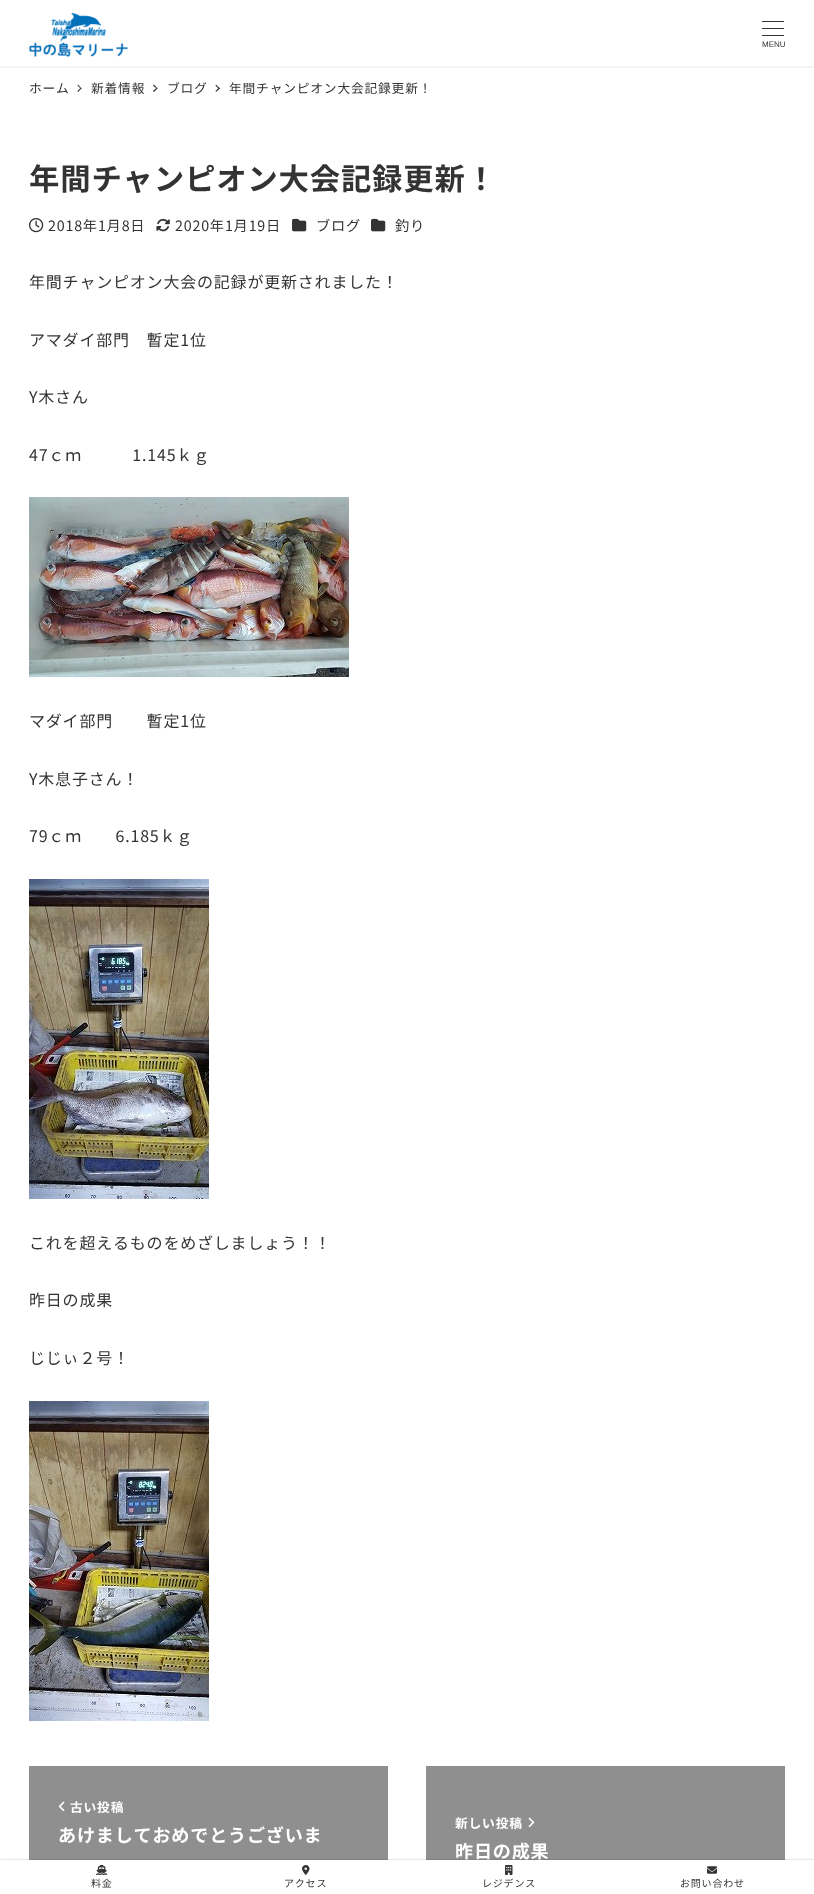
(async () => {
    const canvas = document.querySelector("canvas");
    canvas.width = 814;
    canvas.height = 1894;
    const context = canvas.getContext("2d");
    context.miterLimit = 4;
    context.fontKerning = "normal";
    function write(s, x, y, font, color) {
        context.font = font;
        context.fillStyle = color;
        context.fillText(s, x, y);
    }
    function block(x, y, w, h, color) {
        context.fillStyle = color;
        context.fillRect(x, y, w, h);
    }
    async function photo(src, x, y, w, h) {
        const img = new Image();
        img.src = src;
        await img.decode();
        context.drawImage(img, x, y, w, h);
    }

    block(0, 0, 814, 1894, "rgb(255, 255, 255)");
    context.save();
    context.beginPath();
    context.rect(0, 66, 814, 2);
    context.clip();
    context.fillStyle = "rgba(0, 0, 0, 0.05)";
    context.filter = "blur(1px)";
    context.beginPath();
    context.rect(-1, 0, 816, 68);
    context.fill();
    context.filter = "none";
    context.restore();
    await photo("media/1.png", 28, 13, 100, 44);
    block(762, 21, 22, 1, "rgb(51, 51, 51)");
    block(762, 28, 22, 1, "rgb(51, 51, 51)");
    block(762, 35, 22, 1, "rgb(51, 51, 51)");
    write("MENU", 762, 47, "8px Liberation Sans", "rgb(51, 51, 51)");
    context.letterSpacing = "0.8px";
    write("ホーム", 29, 93, "12.75px Noto Sans JP", "rgb(51, 51, 51)");
    context.beginPath();
    context.moveTo(78, 84.5);
    context.lineTo(81.5, 88.5);
    context.lineTo(81, 89);
    context.lineTo(77.5, 85.5);
    context.closePath();
    context.fill();
    context.beginPath();
    context.moveTo(81, 87.5);
    context.lineTo(81.5, 88.5);
    context.lineTo(78, 92);
    context.lineTo(77.5, 91);
    context.closePath();
    context.fill();
    write("新着情報", 91, 93, "12.75px Noto Sans JP", "rgb(51, 51, 51)");
    context.beginPath();
    context.moveTo(154, 84.5);
    context.lineTo(157.5, 88.5);
    context.lineTo(157, 89);
    context.lineTo(153, 85.5);
    context.closePath();
    context.fill();
    context.beginPath();
    context.moveTo(157, 87.5);
    context.lineTo(157.5, 88.5);
    context.lineTo(154, 92);
    context.lineTo(153, 91);
    context.closePath();
    context.fill();
    write("ブログ", 167, 93, "12.75px Noto Sans JP", "rgb(51, 51, 51)");
    context.beginPath();
    context.moveTo(216, 84.5);
    context.lineTo(220, 88.5);
    context.lineTo(219, 89);
    context.lineTo(215.5, 85.5);
    context.closePath();
    context.fill();
    context.beginPath();
    context.moveTo(219, 87.5);
    context.lineTo(220, 88.5);
    context.lineTo(216, 92);
    context.lineTo(215.5, 91);
    context.closePath();
    context.fill();
    write("年間チャンピオン大会記録更新！", 229, 93, "12.75px Noto Sans JP", "rgb(51, 51, 51)");
    write("年間チャンピオン大会記録更新！", 29, 190, "bold 30.4px Noto Sans JP", "rgb(51, 51, 51)");
    await photo("media/2.png", 29, 218, 15, 15);
    write("2018年1月8日", 48, 231, "14.25px Noto Sans JP", "rgb(51, 51, 51)");
    await photo("media/3.png", 156, 218, 14, 14);
    write("2020年1月19日", 175, 231, "14.25px Noto Sans JP", "rgb(51, 51, 51)");
    await photo("media/4.png", 292, 218, 15, 14);
    write("ブログ", 316, 231, "14.25px Noto Sans JP", "rgb(51, 51, 51)");
    await photo("media/4.png", 371, 218, 15, 14);
    write("釣り", 395, 231, "14.25px Noto Sans JP", "rgb(51, 51, 51)");
    write("年間チャンピオン大会の記録が更新されました！", 29, 288, "16px Noto Sans JP", "rgb(51, 51, 51)");
    write("アマダイ部門　暫定1位", 29, 346, "16px Noto Sans JP", "rgb(51, 51, 51)");
    write("Y木さん", 29, 403, "16px Noto Sans JP", "rgb(51, 51, 51)");
    write("47ｃｍ　　　1.145ｋｇ", 29, 461, "16px Noto Sans JP", "rgb(51, 51, 51)");
    await photo("media/5.png", 29, 497, 320, 180);
    write("マダイ部門　　暫定1位", 29, 727, "16px Noto Sans JP", "rgb(51, 51, 51)");
    write("Y木息子さん！", 29, 785, "16px Noto Sans JP", "rgb(51, 51, 51)");
    write("79ｃｍ　　6.185ｋｇ", 29, 842, "16px Noto Sans JP", "rgb(51, 51, 51)");
    await photo("media/6.png", 29, 879, 180, 320);
    write("これを超えるものをめざしましょう！！", 29, 1249, "16px Noto Sans JP", "rgb(51, 51, 51)");
    write("昨日の成果", 29, 1306, "16px Noto Sans JP", "rgb(51, 51, 51)");
    write("じじぃ２号！", 29, 1364, "16px Noto Sans JP", "rgb(51, 51, 51)");
    await photo("media/7.png", 29, 1401, 180, 320);
    block(29, 1766, 359, 94, "rgb(143, 143, 143)");
    await photo("media/8.png", 58, 1801, 7, 11);
    write("古い投稿", 70, 1812, "bold 12.75px Noto Sans JP", "rgb(255, 255, 255)");
    write("あけましておめでとうございま", 58, 1842, "bold 18.1px Noto Sans JP", "rgb(255, 255, 255)");
    block(426, 1766, 359, 94, "rgb(143, 143, 143)");
    write("新しい投稿", 455, 1828, "bold 12.75px Noto Sans JP", "rgb(255, 255, 255)");
    await photo("media/9.png", 528, 1817, 7, 11);
    write("昨日の成果", 455, 1858, "bold 18.1px Noto Sans JP", "rgb(255, 255, 255)");
    context.fillStyle = "rgba(0, 0, 0, 0.25)";
    context.filter = "blur(1px)";
    context.beginPath();
    context.rect(0, 1860, 814, 34);
    context.fill();
    context.filter = "none";
    block(0, 1860, 814, 34, "rgb(255, 255, 255)");
    await photo("media/10.png", 96, 1865, 12, 10);
    write("料金", 91, 1887, "10px Noto Sans JP", "rgb(51, 51, 51)");
    await photo("media/11.png", 302, 1865, 8, 10);
    write("アクセス", 284, 1887, "10px Noto Sans JP", "rgb(51, 51, 51)");
    await photo("media/12.png", 505, 1865, 8, 10);
    write("レジデンス", 482, 1887, "10px Noto Sans JP", "rgb(51, 51, 51)");
    await photo("media/13.png", 707, 1866, 10, 8);
    write("お問い合わせ", 680, 1887, "10px Noto Sans JP", "rgb(51, 51, 51)");
})();
